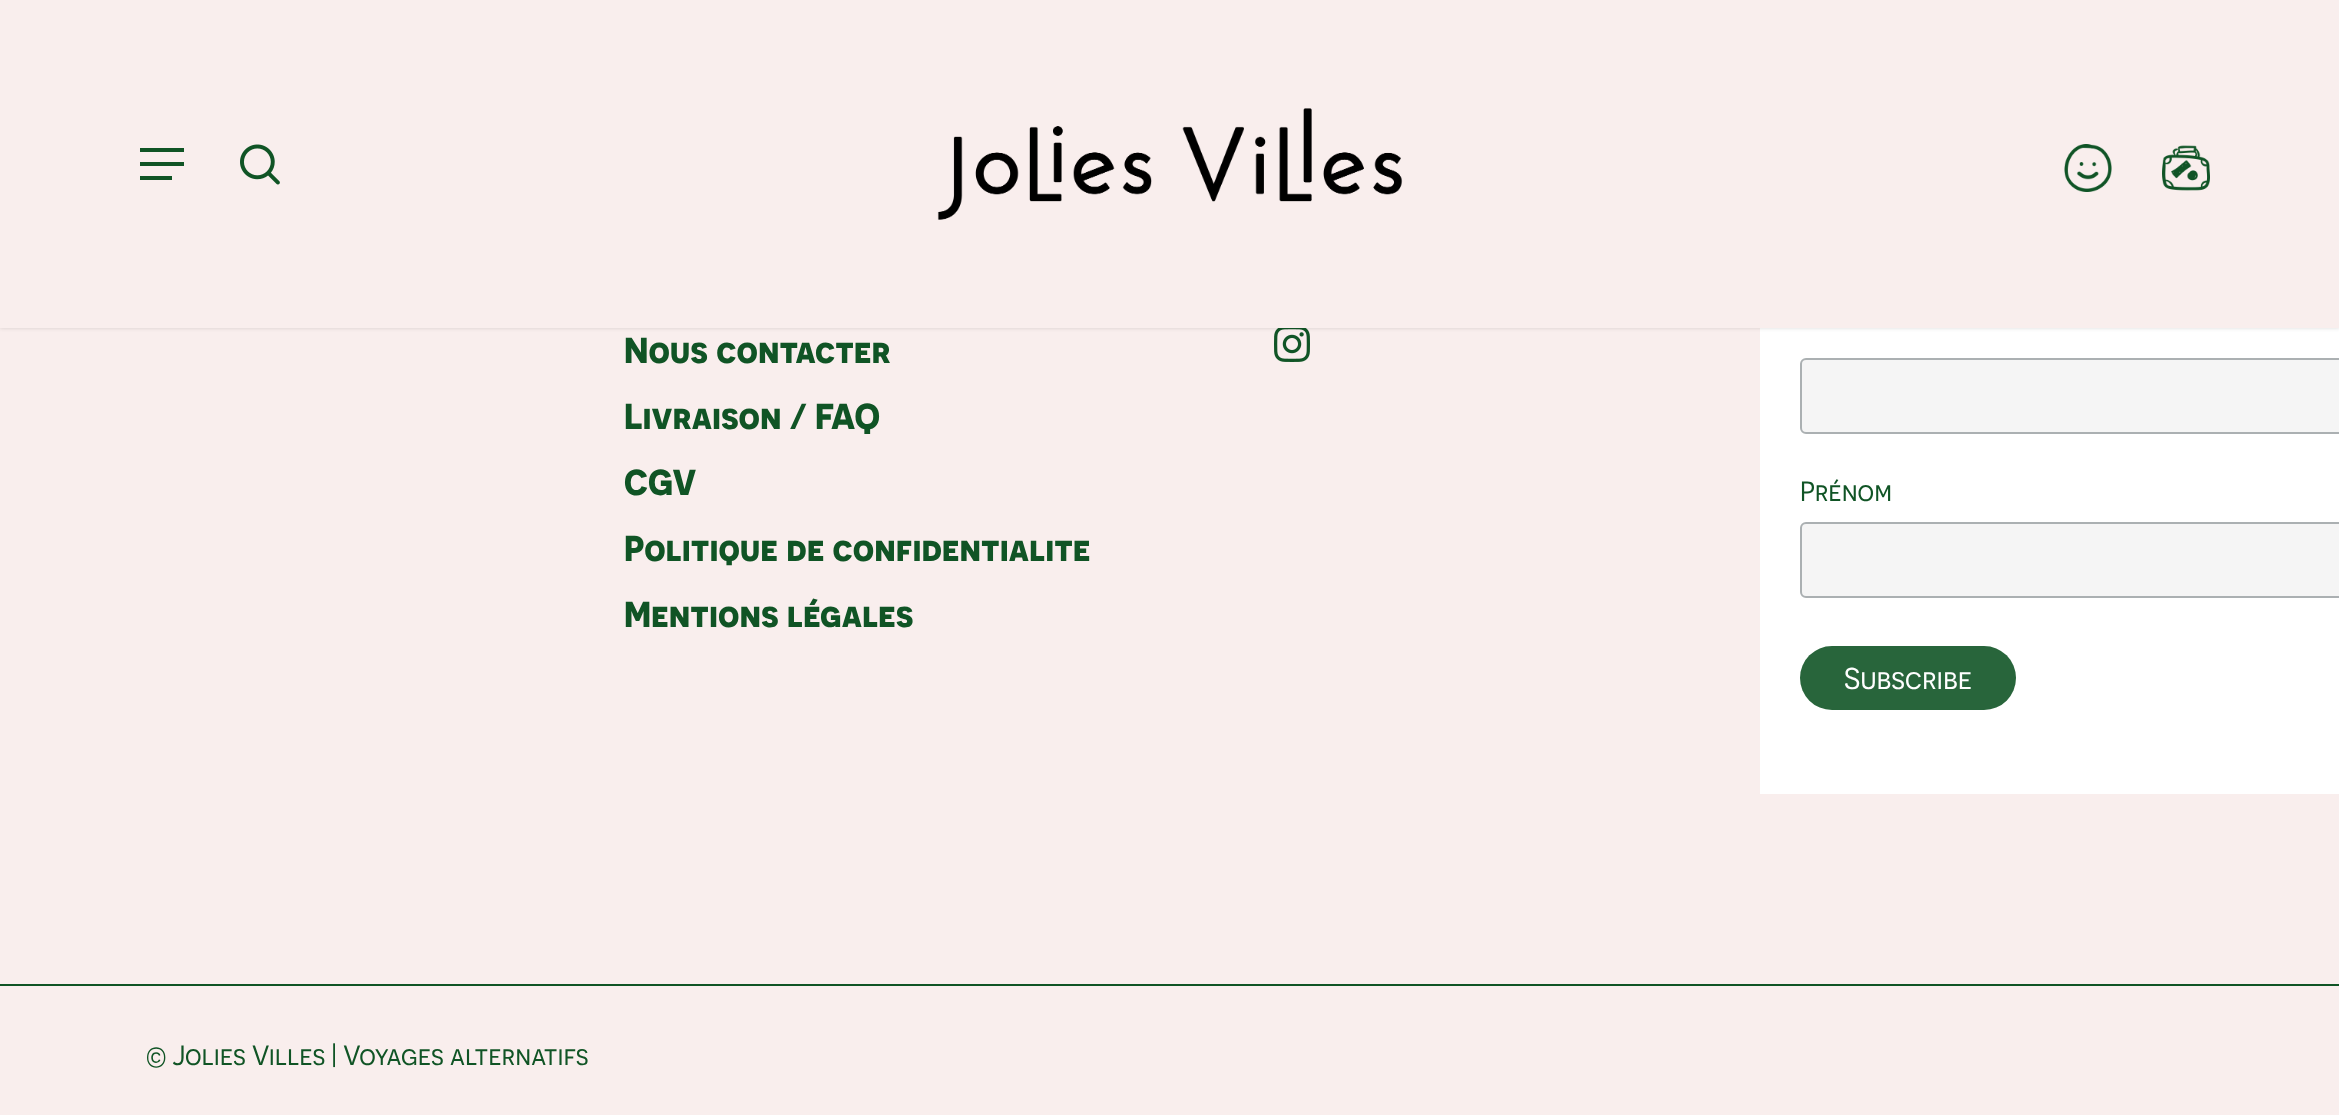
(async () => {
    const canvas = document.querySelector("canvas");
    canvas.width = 2339;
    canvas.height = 1115;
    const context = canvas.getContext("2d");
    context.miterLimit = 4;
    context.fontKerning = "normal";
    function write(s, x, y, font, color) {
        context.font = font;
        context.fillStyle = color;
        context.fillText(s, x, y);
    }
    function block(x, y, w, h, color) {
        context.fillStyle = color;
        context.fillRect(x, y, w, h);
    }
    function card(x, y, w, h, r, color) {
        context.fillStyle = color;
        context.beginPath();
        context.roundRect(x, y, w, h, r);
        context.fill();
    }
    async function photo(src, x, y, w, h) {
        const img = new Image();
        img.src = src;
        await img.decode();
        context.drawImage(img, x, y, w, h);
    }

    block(0, 0, 2339, 1115, "rgb(249, 238, 237)");
    await photo("media/5.png", 1274, 328, 36, 34);
    block(1760, 328, 579, 466, "rgb(255, 255, 255)");
    context.fillStyle = "rgba(0, 0, 0, 0.14)";
    context.filter = "blur(2px)";
    context.beginPath();
    context.rect(0, -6, 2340, 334);
    context.fill();
    context.filter = "none";
    block(0, 0, 2339, 328, "rgb(249, 238, 237)");
    await photo("media/1.png", 937, 108, 466, 112);
    block(140, 148, 44, 4, "rgb(16, 84, 37)");
    block(140, 176, 32, 4, "rgb(16, 84, 37)");
    block(140, 162, 44, 4, "rgb(16, 84, 37)");
    await photo("media/2.png", 240, 144, 40, 41);
    await photo("media/3.png", 2064, 144, 48, 48);
    await photo("media/4.png", 2162, 145, 48, 46);
    write("Nous contacter", 624, 363, "bold 36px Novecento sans", "rgb(16, 84, 37)");
    write("Livraison / FAQ", 624, 429, "bold 36px Novecento sans", "rgb(16, 84, 37)");
    write("CGV", 624, 495, "bold 36px Novecento sans", "rgb(16, 84, 37)");
    write("Politique de confidentialite", 624, 561, "bold 36px Novecento sans", "rgb(16, 84, 37)");
    write("Mentions légales", 624, 627, "bold 36px Novecento sans", "rgb(16, 84, 37)");
    context.fillStyle = "rgb(245, 245, 245)";
    context.beginPath();
    context.roundRect(1801, 359, 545, 74, 5);
    context.fill();
    context.strokeStyle = "rgb(171, 176, 178)";
    context.lineWidth = 2;
    context.stroke();
    write("Prénom", 1800, 501, "28px Novecento sans", "rgb(16, 84, 37)");
    context.fillStyle = "rgb(245, 245, 245)";
    context.beginPath();
    context.roundRect(1801, 523, 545, 74, 5);
    context.fill();
    context.stroke();
    card(1800, 646, 216, 64, 32, "rgb(40, 101, 59)");
    write("Subscribe", 1844, 689, "30px Novecento sans", "rgb(255, 255, 255)");
    block(0, 984, 2339, 2, "rgb(16, 84, 37)");
    write("© Jolies Villes | Voyages alternatifs", 146, 1065, "28px Novecento sans", "rgb(16, 84, 37)");
})();
